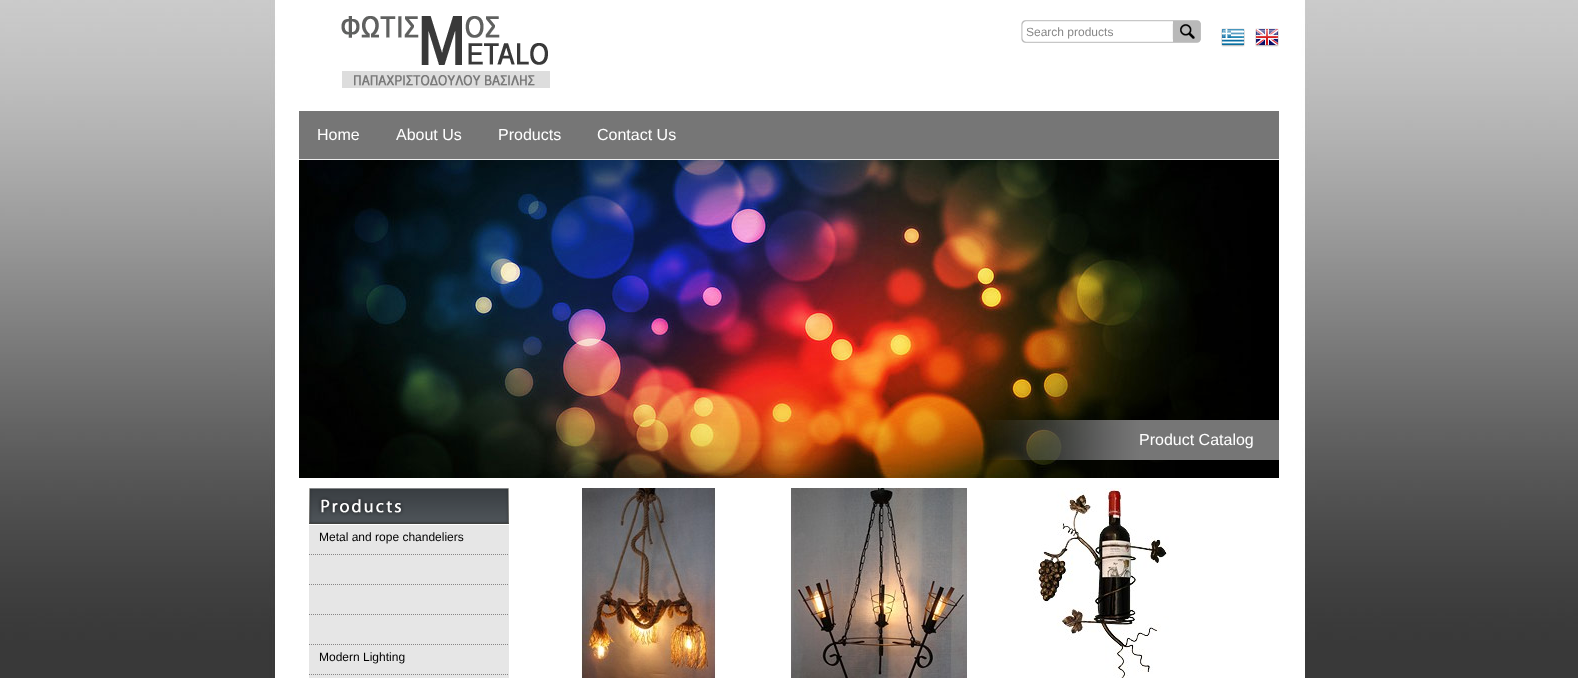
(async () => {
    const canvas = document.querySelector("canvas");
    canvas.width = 1578;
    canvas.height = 678;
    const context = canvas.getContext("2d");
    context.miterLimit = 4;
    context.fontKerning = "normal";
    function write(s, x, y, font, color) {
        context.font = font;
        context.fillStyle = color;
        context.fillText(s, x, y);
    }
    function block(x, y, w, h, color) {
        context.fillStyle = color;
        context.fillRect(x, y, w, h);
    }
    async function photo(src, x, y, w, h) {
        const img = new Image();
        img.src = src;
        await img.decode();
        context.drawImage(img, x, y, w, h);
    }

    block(0, 0, 1578, 678, "rgb(255, 255, 255)");
    await photo("media/1.png", 0, 0, 1578, 678);
    block(299, 159, 980, 1, "rgb(237, 237, 237)");
    await photo("media/2.png", 341, 16, 209, 72);
    await photo("media/3.png", 1021, 20, 155, 23);
    write("Search products", 1026, 36, "12px Liberation Sans", "rgb(136, 136, 136)");
    await photo("media/4.png", 1176, 20, 25, 23);
    await photo("media/5.png", 1221, 28, 24, 19);
    await photo("media/6.png", 1255, 28, 24, 19);
    block(299, 111, 980, 48, "rgb(118, 118, 118)");
    write("Home", 317, 140, "16px Liberation Sans", "rgb(255, 255, 255)");
    write("About Us", 396, 140, "16px Liberation Sans", "rgb(255, 255, 255)");
    write("Products", 498, 140, "16px Liberation Sans", "rgb(255, 255, 255)");
    write("Contact Us", 597, 140, "16px Liberation Sans", "rgb(255, 255, 255)");
    await photo("media/7.png", 299, 160, 980, 318);
    await photo("media/8.png", 986, 420, 153, 40);
    block(1139, 420, 140, 40, "rgb(118, 118, 118)");
    write("Product Catalog", 1139, 445, "16px Liberation Sans", "rgb(255, 255, 255)");
    await photo("media/9.png", 309, 488, 200, 36);
    block(309, 525, 200, 153, "rgb(230, 230, 230)");
    context.beginPath();
    context.moveTo(309, 554.5);
    context.lineTo(509, 554.5);
    context.strokeStyle = "rgb(136, 135, 135)";
    context.setLineDash([1, 1]);
    context.stroke();
    write("Metal and rope chandeliers", 319, 541, "12px Liberation Sans", "rgb(0, 0, 0)");
    context.beginPath();
    context.moveTo(309, 584.5);
    context.lineTo(509, 584.5);
    context.stroke();
    context.beginPath();
    context.moveTo(309, 614.5);
    context.lineTo(509, 614.5);
    context.stroke();
    context.beginPath();
    context.moveTo(309, 644.5);
    context.lineTo(509, 644.5);
    context.stroke();
    context.beginPath();
    context.moveTo(309, 674.5);
    context.lineTo(509, 674.5);
    context.stroke();
    write("Modern Lighting", 319, 661, "12px Liberation Sans", "rgb(0, 0, 0)");
    await photo("media/10.png", 581, 488, 136, 190);
    await photo("media/11.png", 791, 488, 178, 190);
    await photo("media/12.png", 1033, 488, 136, 190);
})();
